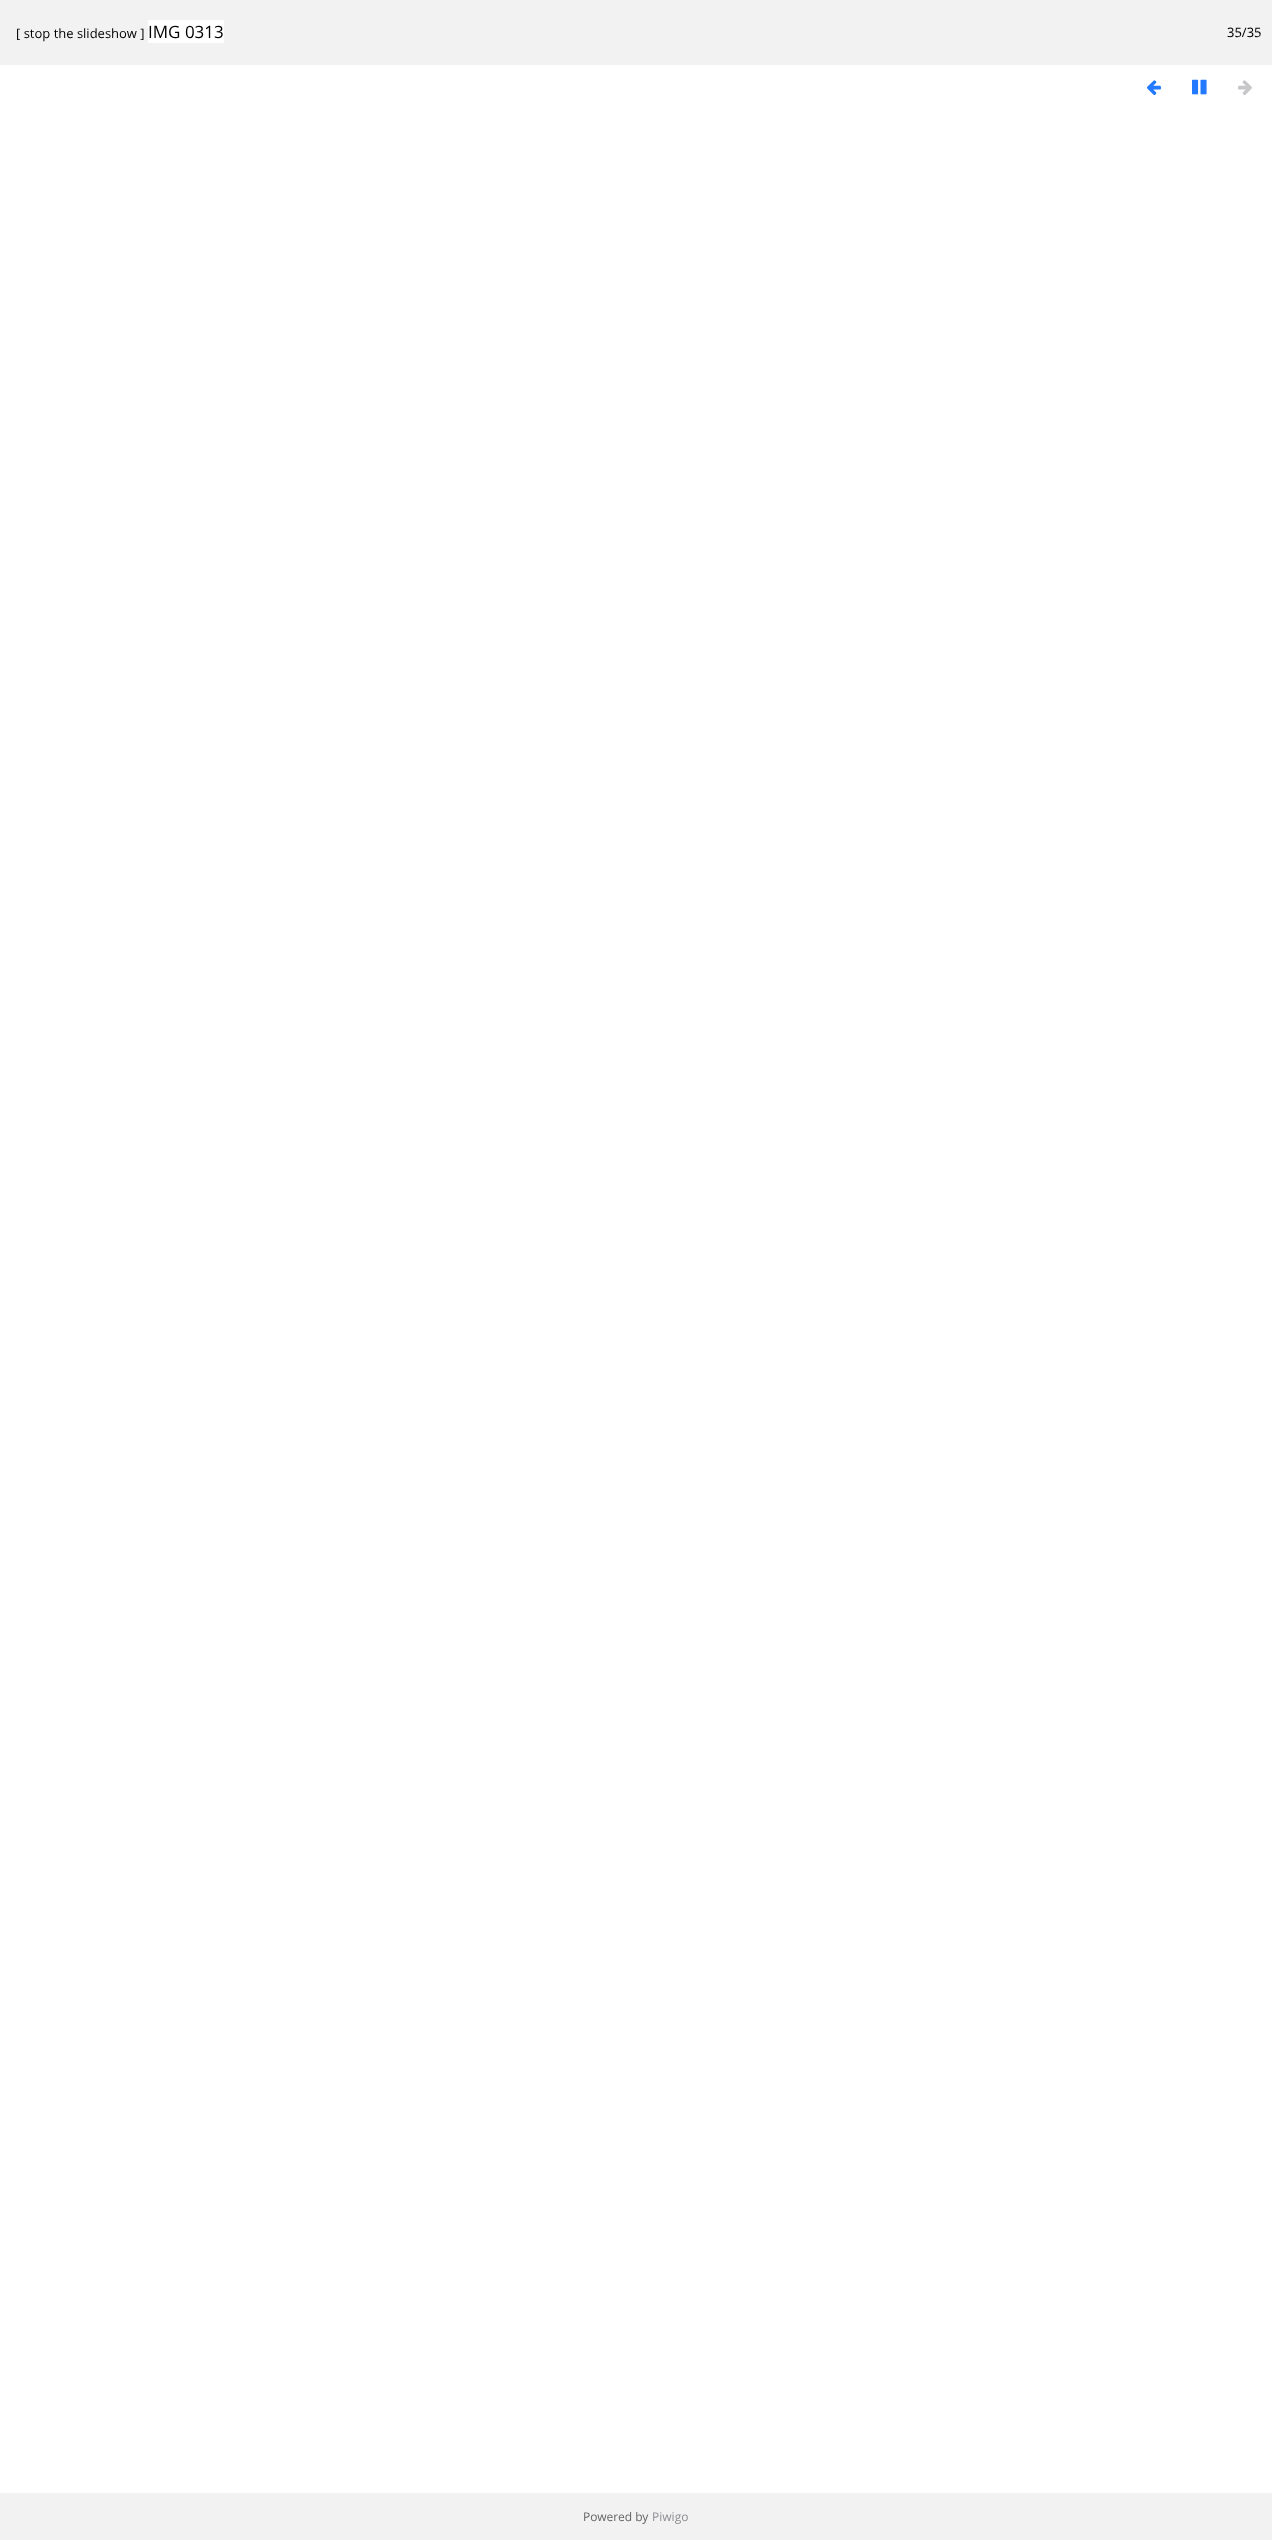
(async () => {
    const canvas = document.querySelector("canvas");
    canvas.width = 1272;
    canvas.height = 2540;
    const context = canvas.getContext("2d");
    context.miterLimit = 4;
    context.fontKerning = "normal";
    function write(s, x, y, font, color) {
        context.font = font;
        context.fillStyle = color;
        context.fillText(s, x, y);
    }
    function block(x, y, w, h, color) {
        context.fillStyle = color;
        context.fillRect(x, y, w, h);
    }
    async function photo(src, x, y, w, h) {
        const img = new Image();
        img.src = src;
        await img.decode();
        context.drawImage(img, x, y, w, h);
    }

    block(0, 0, 1272, 2540, "rgb(255, 255, 255)");
    block(0, 0, 1272, 65, "rgb(242, 242, 242)");
    write("[ stop the slideshow ]", 16, 38, "13px Open Sans", "rgb(0, 0, 0)");
    block(148, 20, 76, 23, "rgb(255, 255, 255)");
    write("IMG 0313", 148, 38, "17px Open Sans", "rgb(0, 0, 0)");
    write("35/35", 1227, 37, "13px Open Sans", "rgb(0, 0, 0)");
    write("←", 1147, 93, "17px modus", "rgb(35, 121, 255)");
    await photo("media/1.png", 1192, 79, 15, 16);
    write("→", 1238, 93, "17px modus", "rgb(199, 199, 201)");
    block(0, 2493, 1272, 47, "rgb(242, 242, 242)");
    write("Powered by", 583, 2521, "12px Open Sans", "rgb(102, 102, 102)");
    write("Piwigo", 652, 2521, "12px Open Sans", "rgb(142, 142, 147)");
})();
